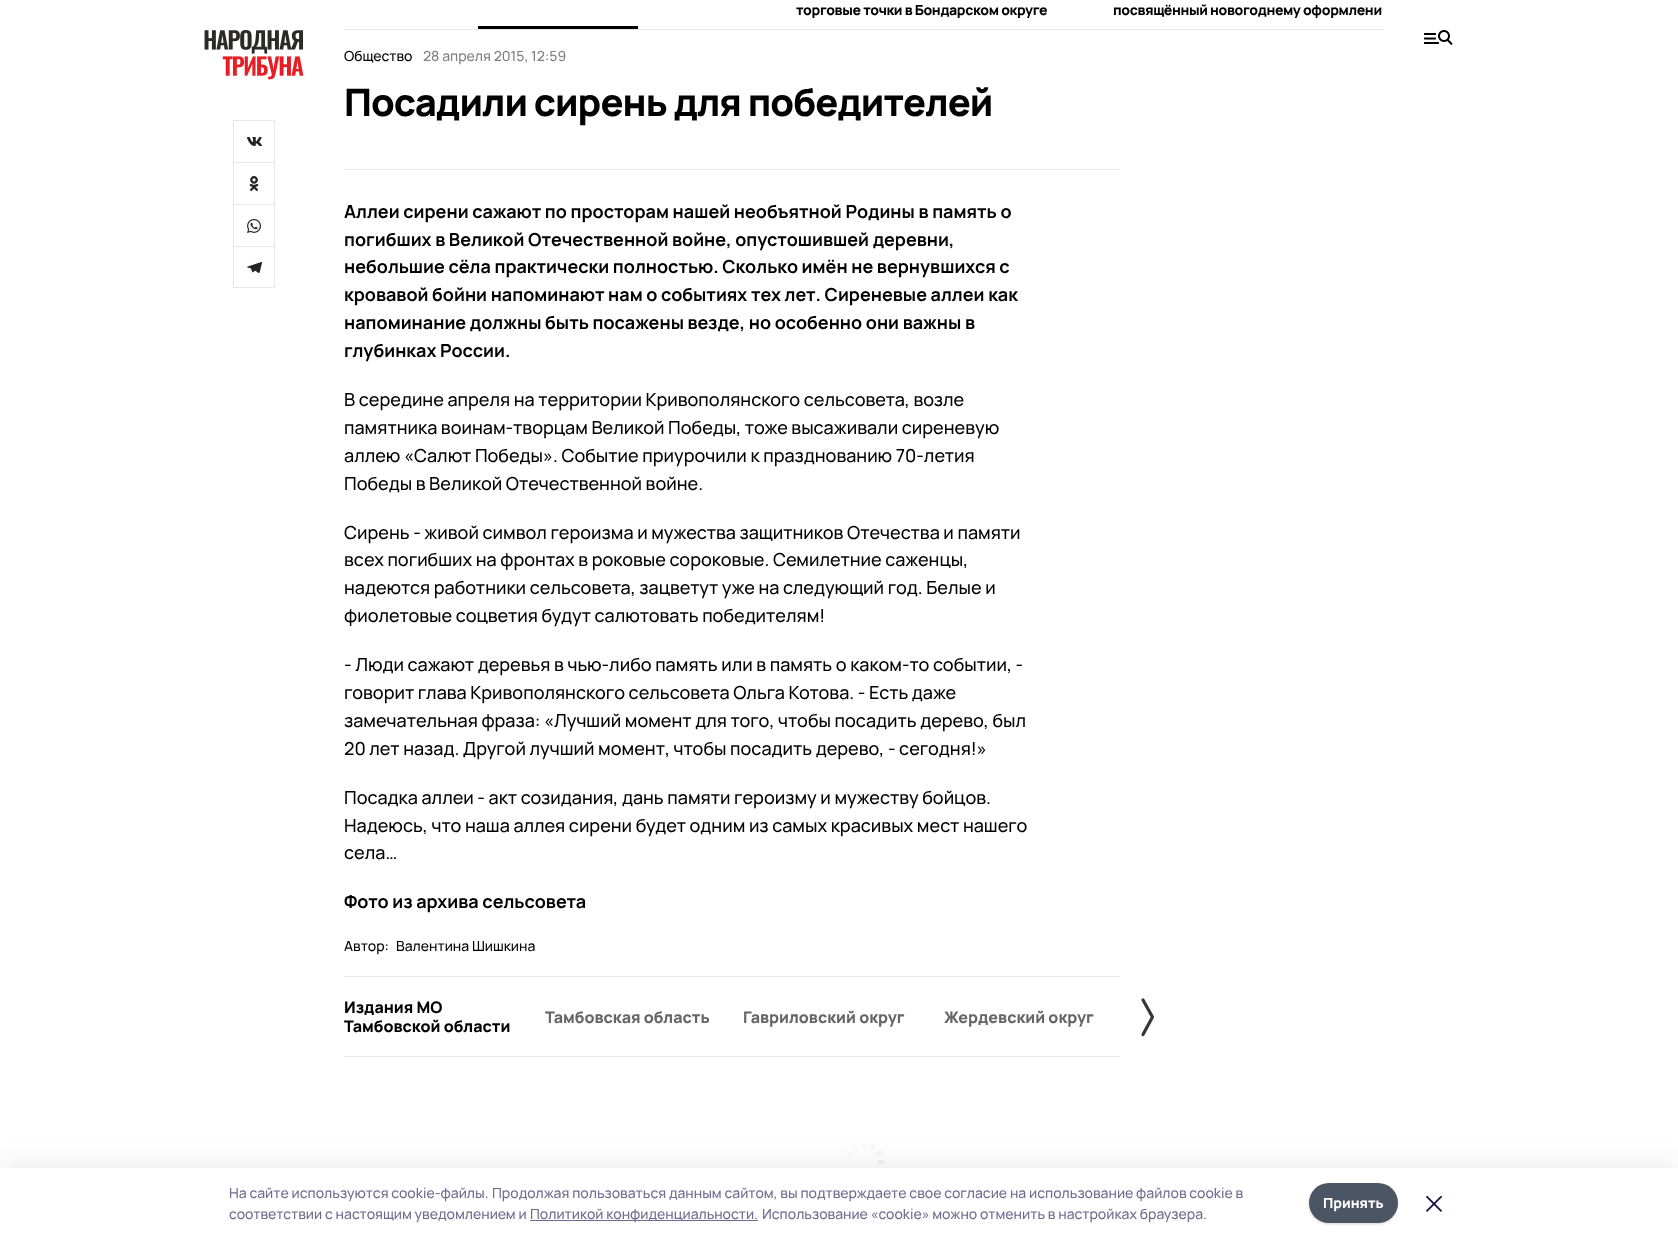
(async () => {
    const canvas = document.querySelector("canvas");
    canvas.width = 1678;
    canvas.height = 1238;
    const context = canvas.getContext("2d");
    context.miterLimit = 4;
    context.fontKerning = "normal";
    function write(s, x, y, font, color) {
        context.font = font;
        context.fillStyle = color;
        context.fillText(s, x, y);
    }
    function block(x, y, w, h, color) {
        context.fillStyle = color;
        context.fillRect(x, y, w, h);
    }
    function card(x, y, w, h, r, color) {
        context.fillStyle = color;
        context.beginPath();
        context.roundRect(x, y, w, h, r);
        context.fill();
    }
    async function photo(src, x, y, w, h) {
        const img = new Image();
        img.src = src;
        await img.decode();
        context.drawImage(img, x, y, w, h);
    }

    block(0, 0, 1678, 1238, "rgb(255, 255, 255)");
    await photo("media/1.png", 204, 30, 100, 50);
    await photo("media/2.png", 247, 137, 15, 9);
    block(233, 120, 42, 1, "rgb(229, 231, 235)");
    block(274, 120, 1, 42, "rgb(229, 231, 235)");
    block(233, 120, 1, 42, "rgb(229, 231, 235)");
    await photo("media/3.png", 249, 176, 10, 15);
    block(233, 162, 42, 1, "rgb(229, 231, 235)");
    block(274, 162, 1, 42, "rgb(229, 231, 235)");
    block(233, 162, 1, 42, "rgb(229, 231, 235)");
    await photo("media/4.png", 247, 219, 14, 14);
    block(233, 204, 42, 1, "rgb(229, 231, 235)");
    block(274, 204, 1, 42, "rgb(229, 231, 235)");
    block(233, 204, 1, 42, "rgb(229, 231, 235)");
    await photo("media/5.png", 247, 262, 15, 11);
    context.strokeStyle = "rgb(229, 231, 235)";
    context.strokeRect(233.5, 246.5, 41, 41);
    block(344, 29, 1040, 1, "rgb(229, 231, 235)");
    context.save();
    context.beginPath();
    context.rect(796, 0, 300, 18);
    context.clip();
    context.letterSpacing = "-0.35px";
    write("торговые точки в Бондарском округе", 796, 15, "800 14px Manrope", "rgb(0, 0, 0)");
    context.restore();
    context.save();
    context.beginPath();
    context.rect(1113, 0, 271, 18);
    context.clip();
    context.letterSpacing = "-0.35px";
    write("посвящённый новогоднему оформлени", 1113, 15, "800 14px Manrope", "rgb(0, 0, 0)");
    context.restore();
    block(478, 26, 160, 3, "rgb(0, 0, 0)");
    write("Общество", 344, 61, "500 14px Manrope", "rgb(0, 0, 0)");
    write("28 апреля 2015, 12:59", 423, 61, "500 14px Manrope", "rgb(128, 128, 128)");
    context.letterSpacing = "-0.95px";
    write("Посадили сирень для победителей", 344, 116, "800 38px Manrope", "rgb(0, 0, 0)");
    block(344, 169, 775, 1, "rgb(229, 231, 235)");
    context.letterSpacing = "0px";
    write("Аллеи сирени сажают по просторам нашей необъятной Родины в память о", 344, 218, "bold 18px Manrope", "rgb(0, 0, 0)");
    write("погибших в Великой Отечественной войне, опустошившей деревни,", 344, 246, "bold 18px Manrope", "rgb(0, 0, 0)");
    write("небольшие сёла практически полностью. Сколько имён не вернувшихся с", 344, 273, "bold 18px Manrope", "rgb(0, 0, 0)");
    write("кровавой бойни напоминают нам о событиях тех лет. Сиреневые аллеи как", 344, 301, "bold 18px Manrope", "rgb(0, 0, 0)");
    write("напоминание должны быть посажены везде, но особенно они важны в", 344, 329, "bold 18px Manrope", "rgb(0, 0, 0)");
    write("глубинках России.", 344, 357, "bold 18px Manrope", "rgb(0, 0, 0)");
    write("В середине апреля на территории Кривополянского сельсовета, возле", 344, 406, "500 18px Manrope", "rgb(0, 0, 0)");
    write("памятника воинам-творцам Великой Победы, тоже высаживали сиреневую", 344, 434, "500 18px Manrope", "rgb(0, 0, 0)");
    write("аллею «Салют Победы». Событие приурочили к празднованию 70-летия", 344, 462, "500 18px Manrope", "rgb(0, 0, 0)");
    write("Победы в Великой Отечественной войне.", 344, 490, "500 18px Manrope", "rgb(0, 0, 0)");
    write("Сирень - живой символ героизма и мужества защитников Отечества и памяти", 344, 539, "500 18px Manrope", "rgb(0, 0, 0)");
    write("всех погибших на фронтах в роковые сороковые. Семилетние саженцы,", 344, 566, "500 18px Manrope", "rgb(0, 0, 0)");
    write("надеются работники сельсовета, зацветут уже на следующий год. Белые и", 344, 594, "500 18px Manrope", "rgb(0, 0, 0)");
    write("фиолетовые соцветия будут салютовать победителям!", 344, 622, "500 18px Manrope", "rgb(0, 0, 0)");
    write("- Люди сажают деревья в чью-либо память или в память о каком-то событии, -", 344, 671, "500 18px Manrope", "rgb(0, 0, 0)");
    write("говорит глава Кривополянского сельсовета Ольга Котова. - Есть даже", 344, 699, "500 18px Manrope", "rgb(0, 0, 0)");
    write("замечательная фраза: «Лучший момент для того, чтобы посадить дерево, был", 344, 727, "500 18px Manrope", "rgb(0, 0, 0)");
    write("20 лет назад. Другой лучший момент, чтобы посадить дерево, - сегодня!»", 344, 755, "500 18px Manrope", "rgb(0, 0, 0)");
    write("Посадка аллеи - акт созидания, дань памяти героизму и мужеству бойцов.", 344, 804, "500 18px Manrope", "rgb(0, 0, 0)");
    write("Надеюсь, что наша аллея сирени будет одним из самых красивых мест нашего", 344, 832, "500 18px Manrope", "rgb(0, 0, 0)");
    write("села…", 344, 859, "500 18px Manrope", "rgb(0, 0, 0)");
    write("Фото из архива сельсовета", 344, 908, "bold 18px Manrope", "rgb(0, 0, 0)");
    write("Автор:", 344, 951, "500 14px Manrope", "rgb(0, 0, 0)");
    write("Валентина Шишкина", 396, 951, "500 14px Manrope", "rgb(0, 0, 0)");
    block(344, 976, 775, 1, "rgb(229, 231, 235)");
    block(344, 1056, 775, 1, "rgb(229, 231, 235)");
    write("Издания МО", 344, 1013, "800 16px Manrope", "rgb(0, 0, 0)");
    write("Тамбовской области", 344, 1032, "800 16px Manrope", "rgb(0, 0, 0)");
    write("Тамбовская область", 545, 1023, "800 16px Manrope", "rgb(102, 102, 102)");
    write("Гавриловский округ", 743, 1023, "800 16px Manrope", "rgb(102, 102, 102)");
    write("Жердевский округ", 944, 1023, "800 16px Manrope", "rgb(102, 102, 102)");
    context.beginPath();
    context.moveTo(1143, 1000);
    context.lineTo(1152.5, 1017);
    context.lineTo(1143, 1034.5);
    context.strokeStyle = "rgb(54, 54, 54)";
    context.lineWidth = 3.2;
    context.lineCap = "round";
    context.lineJoin = "round";
    context.stroke();
    await photo("media/6.png", 846, 1142, 39, 26);
    await photo("media/7.png", 1424, 30, 29, 15);
    context.fillStyle = "rgba(20, 20, 43, 0.08)";
    context.filter = "blur(11.5px)";
    context.beginPath();
    context.rect(0, 1162, 1678, 70);
    context.fill();
    context.filter = "none";
    block(0, 1168, 1678, 70, "rgb(255, 255, 255)");
    write("На сайте используются cookie-файлы.", 229, 1198, "500 14px Manrope", "rgb(111, 108, 144)");
    write("Продолжая пользоваться данным сайтом, вы подтверждаете свое согласие на использование файлов cookie в", 492, 1198, "500 14px Manrope", "rgb(111, 108, 144)");
    write("соответствии с настоящим уведомлением и", 229, 1219, "500 14px Manrope", "rgb(111, 108, 144)");
    block(530, 1220, 228, 1, "rgb(111, 108, 144)");
    write("Политикой конфиденциальности.", 530, 1219, "500 14px Manrope", "rgb(111, 108, 144)");
    write("Использование «cookie» можно отменить в настройках браузера.", 762, 1219, "500 14px Manrope", "rgb(111, 108, 144)");
    context.fillStyle = "rgba(0, 0, 0, 0.06)";
    context.filter = "blur(1px)";
    context.beginPath();
    context.roundRect(1309, 1184, 89, 40, 20);
    context.fill();
    context.filter = "none";
    context.fillStyle = "rgba(0, 0, 0, 0.1)";
    context.filter = "blur(1.5px)";
    context.beginPath();
    context.roundRect(1309, 1184, 89, 40, 20);
    context.fill();
    context.filter = "none";
    card(1309, 1183, 89, 40, 20, "rgb(75, 85, 99)");
    write("Принять", 1323, 1208, "800 14px Manrope", "rgb(255, 255, 255)");
    await photo("media/8.png", 1426, 1196, 16, 16);
})();
